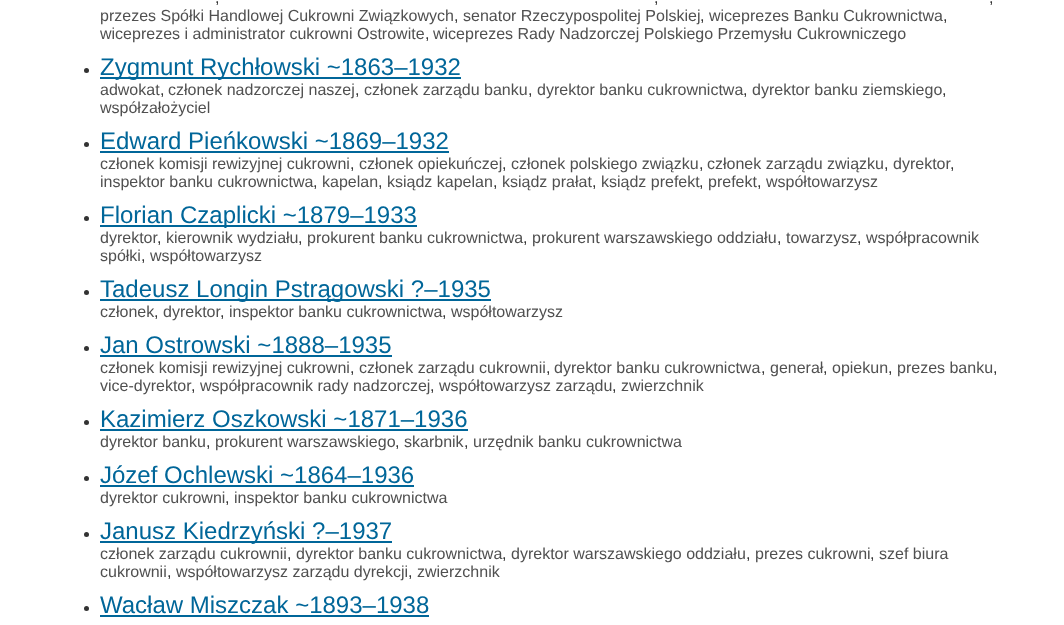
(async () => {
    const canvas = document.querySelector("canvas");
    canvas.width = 1064;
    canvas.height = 625;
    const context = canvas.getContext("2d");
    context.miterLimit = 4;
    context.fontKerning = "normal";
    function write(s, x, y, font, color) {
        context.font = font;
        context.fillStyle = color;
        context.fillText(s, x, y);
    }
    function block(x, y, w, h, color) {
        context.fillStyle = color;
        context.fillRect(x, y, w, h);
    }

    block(0, 0, 1064, 625, "rgb(255, 255, 255)");
    write(",", 215, 3, "16px Liberation Sans", "rgb(51, 51, 51)");
    write(",", 654, 3, "16px Liberation Sans", "rgb(51, 51, 51)");
    write(",", 989, 3, "16px Liberation Sans", "rgb(51, 51, 51)");
    write("przezes Spółki Handlowej Cukrowni Związkowych", 100, 21, "16px Liberation Sans", "rgb(80, 80, 80)");
    write(",", 454, 21, "16px Liberation Sans", "rgb(51, 51, 51)");
    write("senator Rzeczypospolitej Polskiej", 463, 21, "16px Liberation Sans", "rgb(80, 80, 80)");
    write(",", 700, 21, "16px Liberation Sans", "rgb(51, 51, 51)");
    write("wiceprezes Banku Cukrownictwa", 709, 21, "16px Liberation Sans", "rgb(80, 80, 80)");
    write(",", 943, 21, "16px Liberation Sans", "rgb(51, 51, 51)");
    write("wiceprezes i administrator cukrowni Ostrowite", 100, 39, "16px Liberation Sans", "rgb(80, 80, 80)");
    write(",", 425, 39, "16px Liberation Sans", "rgb(51, 51, 51)");
    write("wiceprezes Rady Nadzorczej Polskiego Przemysłu Cukrowniczego", 433, 39, "16px Liberation Sans", "rgb(80, 80, 80)");
    context.fillStyle = "rgb(51, 51, 51)";
    context.beginPath();
    context.arc(86.5, 70.5, 2.5, 0, Math.PI * 2);
    context.fill();
    block(100, 77, 361, 2, "rgb(0, 102, 153)");
    write("Zygmunt Rychłowski ~1863–1932", 100, 75, "24px Liberation Sans", "rgb(0, 102, 153)");
    write("adwokat", 100, 95, "16px Liberation Sans", "rgb(80, 80, 80)");
    write(",", 160, 95, "16px Liberation Sans", "rgb(51, 51, 51)");
    write("członek nadzorczej naszej", 168, 95, "16px Liberation Sans", "rgb(80, 80, 80)");
    write(",", 355, 95, "16px Liberation Sans", "rgb(51, 51, 51)");
    write("członek zarządu banku", 364, 95, "16px Liberation Sans", "rgb(80, 80, 80)");
    write(",", 528, 95, "16px Liberation Sans", "rgb(51, 51, 51)");
    write("dyrektor banku cukrownictwa", 537, 95, "16px Liberation Sans", "rgb(80, 80, 80)");
    write(",", 743, 95, "16px Liberation Sans", "rgb(51, 51, 51)");
    write("dyrektor banku ziemskiego", 752, 95, "16px Liberation Sans", "rgb(80, 80, 80)");
    write(",", 942, 95, "16px Liberation Sans", "rgb(51, 51, 51)");
    write("współzałożyciel", 100, 113, "16px Liberation Sans", "rgb(80, 80, 80)");
    context.fillStyle = "rgb(51, 51, 51)";
    context.beginPath();
    context.arc(86.5, 144.5, 2.5, 0, Math.PI * 2);
    context.fill();
    write("Edward Pieńkowski ~1869–1932", 100, 149, "24px Liberation Sans", "rgb(0, 102, 153)");
    block(100, 151, 349, 2, "rgb(0, 102, 153)");
    write("członek komisji rewizyjnej cukrowni", 100, 169, "16px Liberation Sans", "rgb(80, 80, 80)");
    write(",", 350, 169, "16px Liberation Sans", "rgb(51, 51, 51)");
    write("członek opiekuńczej", 359, 169, "16px Liberation Sans", "rgb(80, 80, 80)");
    write(",", 502, 169, "16px Liberation Sans", "rgb(51, 51, 51)");
    write("członek polskiego związku", 511, 169, "16px Liberation Sans", "rgb(80, 80, 80)");
    write(",", 699, 169, "16px Liberation Sans", "rgb(51, 51, 51)");
    write("członek zarządu związku", 707, 169, "16px Liberation Sans", "rgb(80, 80, 80)");
    write(",", 884, 169, "16px Liberation Sans", "rgb(51, 51, 51)");
    write("dyrektor", 893, 169, "16px Liberation Sans", "rgb(80, 80, 80)");
    write(",", 950, 169, "16px Liberation Sans", "rgb(51, 51, 51)");
    write("inspektor banku cukrownictwa", 100, 187, "16px Liberation Sans", "rgb(80, 80, 80)");
    write(",", 313, 187, "16px Liberation Sans", "rgb(51, 51, 51)");
    write("kapelan", 322, 187, "16px Liberation Sans", "rgb(80, 80, 80)");
    write(",", 378, 187, "16px Liberation Sans", "rgb(51, 51, 51)");
    write("ksiądz kapelan", 387, 187, "16px Liberation Sans", "rgb(80, 80, 80)");
    write(",", 493, 187, "16px Liberation Sans", "rgb(51, 51, 51)");
    write("ksiądz prałat", 502, 187, "16px Liberation Sans", "rgb(80, 80, 80)");
    write(",", 592, 187, "16px Liberation Sans", "rgb(51, 51, 51)");
    write("ksiądz prefekt", 601, 187, "16px Liberation Sans", "rgb(80, 80, 80)");
    write(",", 699, 187, "16px Liberation Sans", "rgb(51, 51, 51)");
    write("prefekt", 708, 187, "16px Liberation Sans", "rgb(80, 80, 80)");
    write(",", 757, 187, "16px Liberation Sans", "rgb(51, 51, 51)");
    write("współtowarzysz", 766, 187, "16px Liberation Sans", "rgb(80, 80, 80)");
    context.fillStyle = "rgb(51, 51, 51)";
    context.beginPath();
    context.arc(86.5, 218.5, 2.5, 0, Math.PI * 2);
    context.fill();
    block(100, 225, 317, 2, "rgb(0, 102, 153)");
    write("Florian Czaplicki ~1879–1933", 100, 223, "24px Liberation Sans", "rgb(0, 102, 153)");
    write("dyrektor", 100, 243, "16px Liberation Sans", "rgb(80, 80, 80)");
    write(",", 157, 243, "16px Liberation Sans", "rgb(51, 51, 51)");
    write("kierownik wydziału", 166, 243, "16px Liberation Sans", "rgb(80, 80, 80)");
    write(",", 298, 243, "16px Liberation Sans", "rgb(51, 51, 51)");
    write("prokurent banku cukrownictwa", 307, 243, "16px Liberation Sans", "rgb(80, 80, 80)");
    write(",", 523, 243, "16px Liberation Sans", "rgb(51, 51, 51)");
    write("prokurent warszawskiego oddziału", 532, 243, "16px Liberation Sans", "rgb(80, 80, 80)");
    write(",", 777, 243, "16px Liberation Sans", "rgb(51, 51, 51)");
    write("towarzysz", 786, 243, "16px Liberation Sans", "rgb(80, 80, 80)");
    write(",", 857, 243, "16px Liberation Sans", "rgb(51, 51, 51)");
    write("współpracownik", 866, 243, "16px Liberation Sans", "rgb(80, 80, 80)");
    write("spółki", 100, 261, "16px Liberation Sans", "rgb(80, 80, 80)");
    write(",", 141, 261, "16px Liberation Sans", "rgb(51, 51, 51)");
    write("współtowarzysz", 150, 261, "16px Liberation Sans", "rgb(80, 80, 80)");
    context.fillStyle = "rgb(51, 51, 51)";
    context.beginPath();
    context.arc(86.5, 292.5, 2.5, 0, Math.PI * 2);
    context.fill();
    block(100, 299, 391, 2, "rgb(0, 102, 153)");
    write("Tadeusz Longin Pstrągowski ?–1935", 100, 297, "24px Liberation Sans", "rgb(0, 102, 153)");
    write("członek", 100, 317, "16px Liberation Sans", "rgb(80, 80, 80)");
    write(",", 154, 317, "16px Liberation Sans", "rgb(51, 51, 51)");
    write("dyrektor", 163, 317, "16px Liberation Sans", "rgb(80, 80, 80)");
    write(",", 220, 317, "16px Liberation Sans", "rgb(51, 51, 51)");
    write("inspektor banku cukrownictwa", 229, 317, "16px Liberation Sans", "rgb(80, 80, 80)");
    write(",", 442, 317, "16px Liberation Sans", "rgb(51, 51, 51)");
    write("współtowarzysz", 451, 317, "16px Liberation Sans", "rgb(80, 80, 80)");
    context.fillStyle = "rgb(51, 51, 51)";
    context.beginPath();
    context.arc(86.5, 348.5, 2.5, 0, Math.PI * 2);
    context.fill();
    write("Jan Ostrowski ~1888–1935", 100, 353, "24px Liberation Sans", "rgb(0, 102, 153)");
    block(100, 355, 292, 2, "rgb(0, 102, 153)");
    write("członek komisji rewizyjnej cukrowni", 100, 373, "16px Liberation Sans", "rgb(80, 80, 80)");
    write(",", 350, 373, "16px Liberation Sans", "rgb(51, 51, 51)");
    write("członek zarządu cukrownii", 359, 373, "16px Liberation Sans", "rgb(80, 80, 80)");
    write(",", 546, 373, "16px Liberation Sans", "rgb(51, 51, 51)");
    write("dyrektor banku cukrownictwa", 554, 373, "16px Liberation Sans", "rgb(80, 80, 80)");
    write(",", 761, 373, "16px Liberation Sans", "rgb(51, 51, 51)");
    write("generał", 770, 373, "16px Liberation Sans", "rgb(80, 80, 80)");
    write(",", 823, 373, "16px Liberation Sans", "rgb(51, 51, 51)");
    write("opiekun", 832, 373, "16px Liberation Sans", "rgb(80, 80, 80)");
    write(",", 888, 373, "16px Liberation Sans", "rgb(51, 51, 51)");
    write("prezes banku", 897, 373, "16px Liberation Sans", "rgb(80, 80, 80)");
    write(",", 993, 373, "16px Liberation Sans", "rgb(51, 51, 51)");
    write("vice-dyrektor", 100, 391, "16px Liberation Sans", "rgb(80, 80, 80)");
    write(",", 191, 391, "16px Liberation Sans", "rgb(51, 51, 51)");
    write("współpracownik rady nadzorczej", 200, 391, "16px Liberation Sans", "rgb(80, 80, 80)");
    write(",", 430, 391, "16px Liberation Sans", "rgb(51, 51, 51)");
    write("współtowarzysz zarządu", 439, 391, "16px Liberation Sans", "rgb(80, 80, 80)");
    write(",", 612, 391, "16px Liberation Sans", "rgb(51, 51, 51)");
    write("zwierzchnik", 621, 391, "16px Liberation Sans", "rgb(80, 80, 80)");
    context.fillStyle = "rgb(51, 51, 51)";
    context.beginPath();
    context.arc(86.5, 422.5, 2.5, 0, Math.PI * 2);
    context.fill();
    write("Kazimierz Oszkowski ~1871–1936", 100, 427, "24px Liberation Sans", "rgb(0, 102, 153)");
    block(100, 429, 368, 2, "rgb(0, 102, 153)");
    write("dyrektor banku", 100, 447, "16px Liberation Sans", "rgb(80, 80, 80)");
    write(",", 206, 447, "16px Liberation Sans", "rgb(51, 51, 51)");
    write("prokurent warszawskiego", 215, 447, "16px Liberation Sans", "rgb(80, 80, 80)");
    write(",", 395, 447, "16px Liberation Sans", "rgb(51, 51, 51)");
    write("skarbnik", 404, 447, "16px Liberation Sans", "rgb(80, 80, 80)");
    write(",", 464, 447, "16px Liberation Sans", "rgb(51, 51, 51)");
    write("urzędnik banku cukrownictwa", 473, 447, "16px Liberation Sans", "rgb(80, 80, 80)");
    context.fillStyle = "rgb(51, 51, 51)";
    context.beginPath();
    context.arc(86.5, 478.5, 2.5, 0, Math.PI * 2);
    context.fill();
    write("Józef Ochlewski ~1864–1936", 100, 483, "24px Liberation Sans", "rgb(0, 102, 153)");
    block(100, 485, 314, 2, "rgb(0, 102, 153)");
    write("dyrektor cukrowni", 100, 503, "16px Liberation Sans", "rgb(80, 80, 80)");
    write(",", 225, 503, "16px Liberation Sans", "rgb(51, 51, 51)");
    write("inspektor banku cukrownictwa", 234, 503, "16px Liberation Sans", "rgb(80, 80, 80)");
    context.fillStyle = "rgb(51, 51, 51)";
    context.beginPath();
    context.arc(86.5, 534.5, 2.5, 0, Math.PI * 2);
    context.fill();
    block(100, 541, 292, 2, "rgb(0, 102, 153)");
    write("Janusz Kiedrzyński ?–1937", 100, 539, "24px Liberation Sans", "rgb(0, 102, 153)");
    write("członek zarządu cukrownii", 100, 559, "16px Liberation Sans", "rgb(80, 80, 80)");
    write(",", 287, 559, "16px Liberation Sans", "rgb(51, 51, 51)");
    write("dyrektor banku cukrownictwa", 296, 559, "16px Liberation Sans", "rgb(80, 80, 80)");
    write(",", 502, 559, "16px Liberation Sans", "rgb(51, 51, 51)");
    write("dyrektor warszawskiego oddziału", 511, 559, "16px Liberation Sans", "rgb(80, 80, 80)");
    write(",", 746, 559, "16px Liberation Sans", "rgb(51, 51, 51)");
    write("prezes cukrowni", 755, 559, "16px Liberation Sans", "rgb(80, 80, 80)");
    write(",", 870, 559, "16px Liberation Sans", "rgb(51, 51, 51)");
    write("szef biura", 879, 559, "16px Liberation Sans", "rgb(80, 80, 80)");
    write("cukrownii", 100, 577, "16px Liberation Sans", "rgb(80, 80, 80)");
    write(",", 167, 577, "16px Liberation Sans", "rgb(51, 51, 51)");
    write("współtowarzysz zarządu dyrekcji", 176, 577, "16px Liberation Sans", "rgb(80, 80, 80)");
    write(",", 408, 577, "16px Liberation Sans", "rgb(51, 51, 51)");
    write("zwierzchnik", 417, 577, "16px Liberation Sans", "rgb(80, 80, 80)");
    context.fillStyle = "rgb(51, 51, 51)";
    context.beginPath();
    context.arc(86.5, 608.5, 2.5, 0, Math.PI * 2);
    context.fill();
    write("Wacław Miszczak ~1893–1938", 100, 613, "24px Liberation Sans", "rgb(0, 102, 153)");
    block(100, 615, 329, 2, "rgb(0, 102, 153)");
})();
